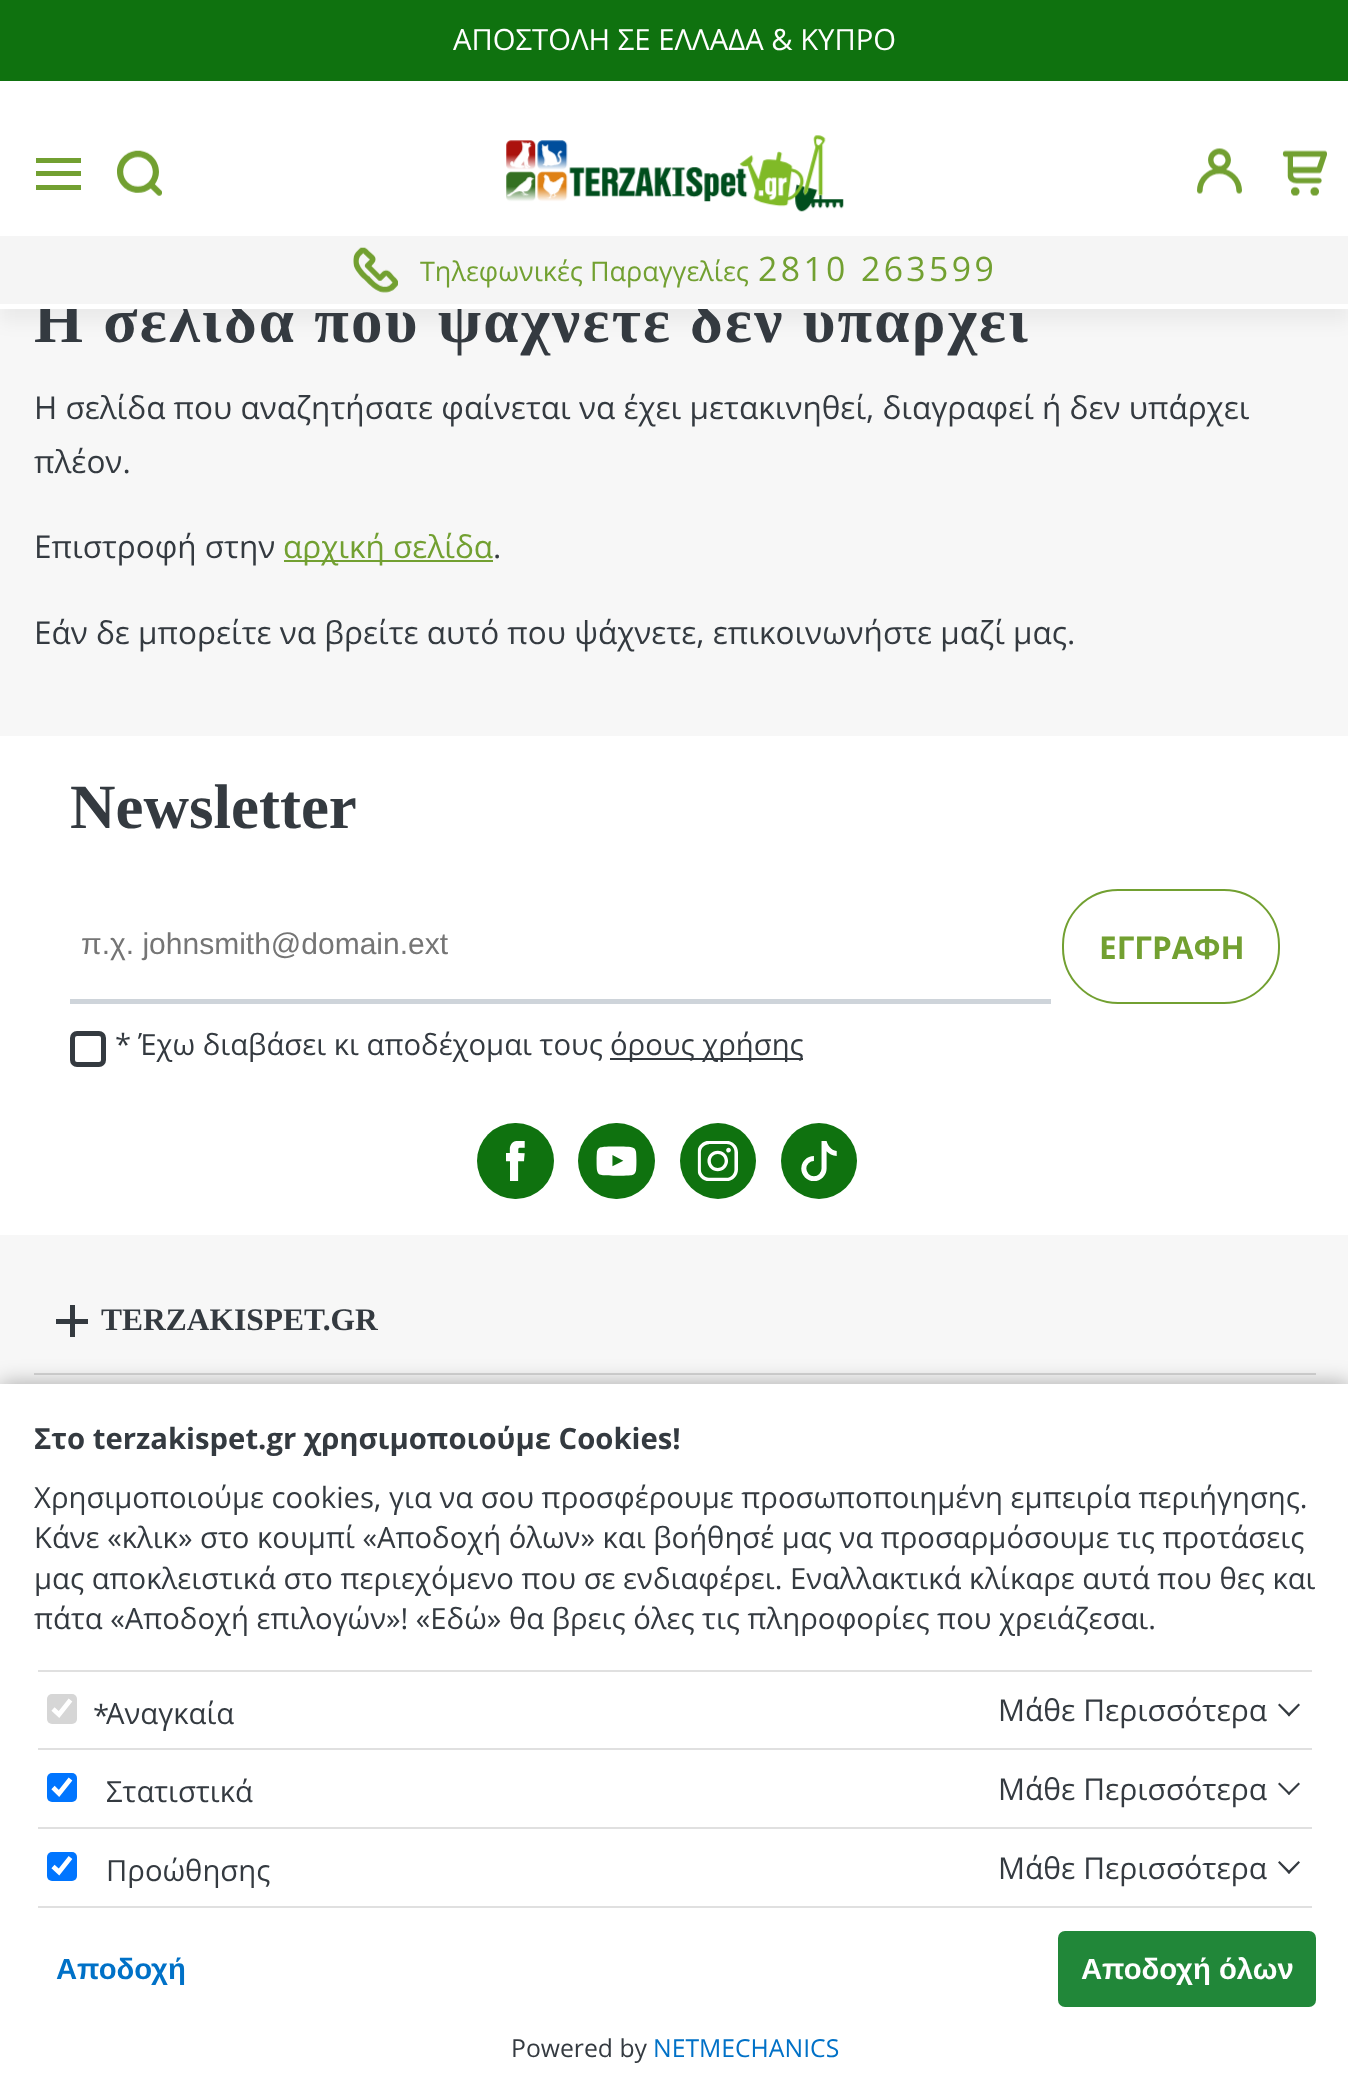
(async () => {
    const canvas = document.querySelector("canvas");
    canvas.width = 1348;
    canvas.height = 2074;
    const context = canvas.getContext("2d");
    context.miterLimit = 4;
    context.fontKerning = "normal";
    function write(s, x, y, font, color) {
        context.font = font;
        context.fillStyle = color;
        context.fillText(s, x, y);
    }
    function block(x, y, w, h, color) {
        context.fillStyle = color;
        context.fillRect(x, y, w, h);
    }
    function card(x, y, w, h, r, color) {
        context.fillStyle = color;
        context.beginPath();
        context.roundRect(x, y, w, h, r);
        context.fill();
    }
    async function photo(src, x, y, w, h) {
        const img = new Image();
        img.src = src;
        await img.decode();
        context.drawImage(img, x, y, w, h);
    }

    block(0, 0, 1348, 2074, "rgb(247, 247, 247)");
    context.fillStyle = "rgba(0, 0, 0, 0.05)";
    context.filter = "blur(9px)";
    context.beginPath();
    context.rect(0, 14, 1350, 308);
    context.fill();
    context.filter = "none";
    block(0, 81, 1348, 155, "rgb(255, 255, 255)");
    context.letterSpacing = "2.25px";
    write("Η σελίδα που ψάχνετε δεν υπάρχει", 34, 342, "bold 63px Liberation Serif", "rgb(52, 58, 64)");
    block(0, 304, 1348, 5, "rgb(255, 255, 255)");
    block(0, 0, 1348, 81, "rgb(15, 114, 15)");
    context.letterSpacing = "0px";
    write("ΑΠΟΣΤΟΛΗ ΣΕ ΕΛΛΑΔΑ & ΚΥΠΡΟ", 453, 50, "29.25px Open Sans", "rgb(255, 255, 255)");
    await photo("media/1.png", 506, 135, 338, 77);
    await photo("media/2.png", 1197, 148, 45, 46);
    await photo("media/3.png", 1282, 150, 45, 46);
    block(36, 158, 45, 5, "rgb(114, 160, 49)");
    block(36, 171, 45, 5, "rgb(114, 160, 49)");
    block(36, 185, 45, 5, "rgb(114, 160, 49)");
    await photo("media/4.png", 117, 150, 45, 46);
    block(0, 236, 1348, 68, "rgb(245, 245, 245)");
    await photo("media/5.png", 353, 247, 45, 46);
    write("Τηλεφωνικές Παραγγελίες", 420, 281, "27px Open Sans", "rgb(114, 160, 49)");
    context.letterSpacing = "3.4px";
    write("2810 263599", 758, 281, "33.75px Open Sans", "rgb(114, 160, 49)");
    context.letterSpacing = "0px";
    write("Η σελίδα που αναζητήσατε φαίνεται να έχει μετακινηθεί, διαγραφεί ή δεν υπάρχει", 34, 419, "31.5px Open Sans", "rgb(52, 58, 64)");
    write("πλέον.", 34, 473, "31.5px Open Sans", "rgb(52, 58, 64)");
    write("Επιστροφή στην", 34, 558, "31.5px Open Sans", "rgb(52, 58, 64)");
    block(284, 560, 209, 2, "rgb(114, 160, 49)");
    write("αρχική σελίδα", 283, 558, "31.5px Open Sans", "rgb(114, 160, 49)");
    write(".", 493, 558, "31.5px Open Sans", "rgb(52, 58, 64)");
    write("Εάν δε μπορείτε να βρείτε αυτό που ψάχνετε, επικοινωνήστε μαζί μας.", 34, 644, "31.5px Open Sans", "rgb(52, 58, 64)");
    block(0, 736, 1348, 499, "rgb(255, 255, 255)");
    write("Newsletter", 70, 828, "bold 63px Liberation Serif", "rgb(52, 58, 64)");
    block(70, 999, 981, 5, "rgb(206, 212, 218)");
    write("π.χ. johnsmith@domain.ext", 81, 954, "30px Liberation Sans", "rgb(117, 117, 117)");
    context.beginPath();
    context.roundRect(1063, 890, 216, 113, 55);
    context.strokeStyle = "rgb(114, 160, 49)";
    context.lineWidth = 2;
    context.stroke();
    write("ΕΓΓΡΑΦΗ", 1099, 959, "bold 31.5px Open Sans", "rgb(114, 160, 49)");
    context.beginPath();
    context.roundRect(72.5, 1033.5, 31, 31, 4.5);
    context.strokeStyle = "rgb(52, 58, 64)";
    context.lineWidth = 5;
    context.stroke();
    write("*", 115, 1055, "29.25px Open Sans", "rgb(52, 58, 64)");
    write("Έχω διαβάσει κι αποδέχομαι τους", 138, 1055, "29.25px Open Sans", "rgb(52, 58, 64)");
    block(610, 1058, 193, 2, "rgb(52, 58, 64)");
    write("όρους χρήσης", 610, 1055, "29.25px Open Sans", "rgb(52, 58, 64)");
    card(477, 1123, 77, 76, 38, "rgb(15, 114, 15)");
    await photo("media/6.png", 506, 1141, 19, 40);
    card(578, 1123, 77, 76, 38, "rgb(15, 114, 15)");
    await photo("media/7.png", 596, 1146, 41, 30);
    context.beginPath();
    context.arc(718, 1161, 38, 0, Math.PI * 2);
    context.fill();
    await photo("media/8.png", 697, 1141, 41, 40);
    context.beginPath();
    context.arc(819, 1161, 38, 0, Math.PI * 2);
    context.fill();
    await photo("media/9.png", 801, 1141, 36, 40);
    block(34, 1373, 1282, 2, "rgb(214, 214, 214)");
    block(56, 1319, 32, 5, "rgb(52, 58, 64)");
    block(70, 1305, 5, 32, "rgb(52, 58, 64)");
    write("TERZAKISPET.GR", 101, 1330, "bold 31.5px Liberation Serif", "rgb(52, 58, 64)");
    context.fillStyle = "rgba(0, 0, 0, 0.33)";
    context.filter = "blur(11px)";
    context.beginPath();
    context.rect(0, 1384, 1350, 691);
    context.fill();
    context.filter = "none";
    block(0, 1384, 1348, 690, "rgb(255, 255, 255)");
    write("Στο terzakispet.gr χρησιμοποιούμε Cookies!", 34, 1449, "bold 29.25px Open Sans", "rgb(52, 58, 64)");
    write("Χρησιμοποιούμε cookies, για να σου προσφέρουμε προσωποποιημένη εμπειρία περιήγησης.", 34, 1508, "29.25px Open Sans", "rgb(52, 58, 64)");
    write("Κάνε «κλικ» στο κουμπί «Αποδοχή όλων» και βοήθησέ μας να προσαρμόσουμε τις προτάσεις", 34, 1548, "29.25px Open Sans", "rgb(52, 58, 64)");
    write("μας αποκλειστικά στο περιεχόμενο που σε ενδιαφέρει. Εναλλακτικά κλίκαρε αυτά που θες και", 34, 1589, "29.25px Open Sans", "rgb(52, 58, 64)");
    write("πάτα «Αποδοχή επιλογών»! «Εδώ» θα βρεις όλες τις πληροφορίες που χρειάζεσαι.", 34, 1629, "29.25px Open Sans", "rgb(52, 58, 64)");
    block(38, 1670, 1274, 2, "rgb(224, 224, 224)");
    card(47, 1694, 30, 30, 5, "rgb(214, 214, 214)");
    context.beginPath();
    context.moveTo(53, 1709);
    context.lineTo(59, 1714.5);
    context.lineTo(70.5, 1700);
    context.strokeStyle = "rgb(255, 255, 255)";
    context.lineWidth = 4.7;
    context.stroke();
    write("Αναγκαία", 106, 1724, "29.25px Open Sans", "rgb(52, 58, 64)");
    write("*", 93, 1726, "29.25px Open Sans", "rgb(52, 58, 64)");
    write("Μάθε Περισσότερα", 998, 1721, "30px Open Sans", "rgb(52, 58, 64)");
    context.beginPath();
    context.moveTo(1287.5, 1714.5);
    context.lineTo(1298.5, 1703.5);
    context.lineTo(1300, 1705);
    context.lineTo(1289, 1716.5);
    context.closePath();
    context.fill();
    context.beginPath();
    context.moveTo(1278, 1705);
    context.lineTo(1279.5, 1703.5);
    context.lineTo(1290.5, 1714.5);
    context.lineTo(1289, 1716.5);
    context.closePath();
    context.fill();
    block(38, 1748, 1274, 2, "rgb(224, 224, 224)");
    card(47, 1773, 30, 29, 5, "rgb(0, 117, 255)");
    context.beginPath();
    context.moveTo(53, 1787.5);
    context.lineTo(59, 1793.5);
    context.lineTo(70.5, 1779);
    context.stroke();
    write("Στατιστικά", 106, 1802, "29.25px Open Sans", "rgb(52, 58, 64)");
    write("Μάθε Περισσότερα", 998, 1800, "30px Open Sans", "rgb(52, 58, 64)");
    context.beginPath();
    context.moveTo(1287.5, 1793.5);
    context.lineTo(1298.5, 1782.5);
    context.lineTo(1300, 1784);
    context.lineTo(1289, 1795);
    context.closePath();
    context.fill();
    context.beginPath();
    context.moveTo(1278, 1784);
    context.lineTo(1279.5, 1782.5);
    context.lineTo(1290.5, 1793.5);
    context.lineTo(1289, 1795);
    context.closePath();
    context.fill();
    block(38, 1827, 1274, 2, "rgb(224, 224, 224)");
    block(38, 1906, 1274, 2, "rgb(224, 224, 224)");
    card(47, 1852, 30, 29, 5, "rgb(0, 117, 255)");
    context.beginPath();
    context.moveTo(53, 1866.5);
    context.lineTo(59, 1872);
    context.lineTo(70.5, 1857.5);
    context.stroke();
    write("Προώθησης", 106, 1881, "29.25px Open Sans", "rgb(52, 58, 64)");
    write("Μάθε Περισσότερα", 998, 1879, "30px Open Sans", "rgb(52, 58, 64)");
    context.beginPath();
    context.moveTo(1287.5, 1872);
    context.lineTo(1298.5, 1861);
    context.lineTo(1300, 1862.5);
    context.lineTo(1289, 1874);
    context.closePath();
    context.fill();
    context.beginPath();
    context.moveTo(1278, 1862.5);
    context.lineTo(1279.5, 1861);
    context.lineTo(1290.5, 1872);
    context.lineTo(1289, 1874);
    context.closePath();
    context.fill();
    write("Αποδοχή", 56, 1979, "bold 29.25px Liberation Sans", "rgb(0, 113, 199)");
    card(1058, 1931, 258, 76, 7, "rgb(33, 135, 57)");
    write("Αποδοχή όλων", 1081, 1979, "bold 29.25px Liberation Sans", "rgb(255, 255, 255)");
    write("Powered by", 511, 2057, "24.75px Open Sans", "rgb(52, 58, 64)");
    write("NETMECHANICS", 653, 2057, "24.75px Open Sans", "rgb(0, 113, 199)");
})();
